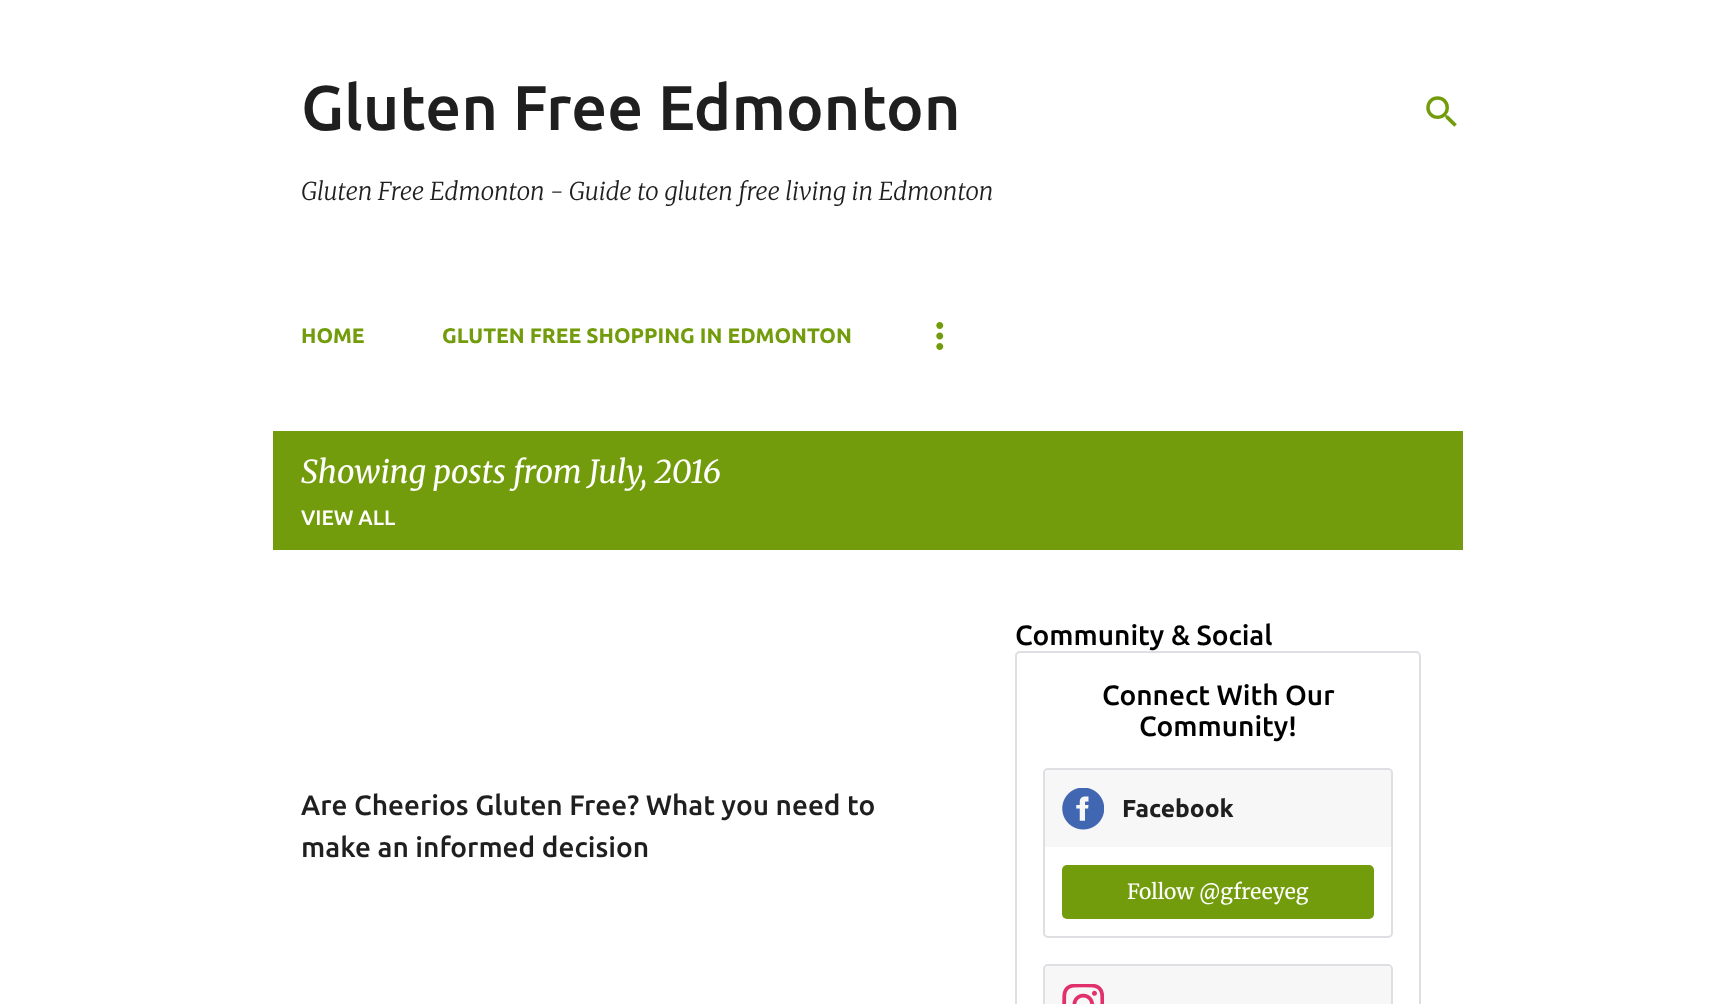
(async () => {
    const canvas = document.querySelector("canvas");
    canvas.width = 1735;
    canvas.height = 1004;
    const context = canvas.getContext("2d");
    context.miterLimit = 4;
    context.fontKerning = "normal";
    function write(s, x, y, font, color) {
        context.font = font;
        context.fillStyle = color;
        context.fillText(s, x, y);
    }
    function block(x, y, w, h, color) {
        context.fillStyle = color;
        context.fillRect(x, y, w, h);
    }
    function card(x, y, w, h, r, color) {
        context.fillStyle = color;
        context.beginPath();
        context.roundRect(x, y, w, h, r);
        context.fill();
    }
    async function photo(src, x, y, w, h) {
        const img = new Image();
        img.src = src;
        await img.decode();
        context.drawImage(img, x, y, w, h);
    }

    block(0, 0, 1735, 1004, "rgb(255, 255, 255)");
    write("Gluten Free Edmonton", 301, 130, "500 63px Ubuntu", "rgb(31, 31, 31)");
    write("Gluten Free Edmonton - Guide to gluten free living in Edmonton", 301, 200, "italic 300 24.5px Merriweather", "rgb(31, 31, 31)");
    await photo("media/1.png", 1426, 96, 31, 31);
    write("HOME", 301, 343, "bold 21px Ubuntu", "rgb(114, 156, 11)");
    write("GLUTEN FREE SHOPPING IN EDMONTON", 442, 343, "bold 21px Ubuntu", "rgb(114, 156, 11)");
    await photo("media/2.png", 936, 322, 8, 28);
    block(273, 431, 1190, 119, "rgb(114, 156, 11)");
    write("Showing posts from July, 2016", 301, 483, "italic 31.5px Merriweather", "rgb(255, 255, 255)");
    write("VIEW ALL", 301, 525, "500 21px Ubuntu", "rgb(255, 255, 255)");
    write("Are Cheerios Gluten Free? What you need to", 301, 815, "500 28px Ubuntu", "rgb(31, 31, 31)");
    write("make an informed decision", 301, 857, "500 28px Ubuntu", "rgb(31, 31, 31)");
    write("Community & Social", 1015, 645, "500 28px Ubuntu", "rgb(0, 0, 0)");
    context.beginPath();
    context.roundRect(1016, 652, 404, 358, 4);
    context.strokeStyle = "rgb(221, 223, 226)";
    context.lineWidth = 2;
    context.stroke();
    write("Connect With Our", 1102, 705, "500 28px Ubuntu", "rgb(0, 0, 0)");
    write("Community!", 1139, 736, "500 28px Ubuntu", "rgb(0, 0, 0)");
    context.beginPath();
    context.roundRect(1044, 769, 348, 168, 4);
    context.stroke();
    context.fillStyle = "rgb(247, 247, 247)";
    context.beginPath();
    context.roundRect(1045, 770, 346, 77, [4, 4, 0, 0]);
    context.fill();
    await photo("media/3.png", 1062, 788, 42, 42);
    write("Facebook", 1122, 817, "bold 24.5px Ubuntu", "rgb(31, 31, 31)");
    card(1062, 865, 312, 54, 5, "rgb(114, 156, 11)");
    write("Follow @gfreeyeg", 1127, 899, "300 21px Merriweather", "rgb(255, 255, 255)");
    context.beginPath();
    context.roundRect(1044, 965, 348, 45, 4);
    context.stroke();
    context.fillStyle = "rgb(247, 247, 247)";
    context.beginPath();
    context.moveTo(1049, 966);
    context.lineTo(1387, 966);
    context.bezierCurveTo(1389, 966, 1391, 968, 1391, 970);
    context.lineTo(1391, 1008);
    context.lineTo(1045, 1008);
    context.lineTo(1045, 970);
    context.bezierCurveTo(1045, 968, 1047, 966, 1049, 966);
    context.closePath();
    context.fill();
    await photo("media/4.png", 1062, 984, 42, 20);
})();
